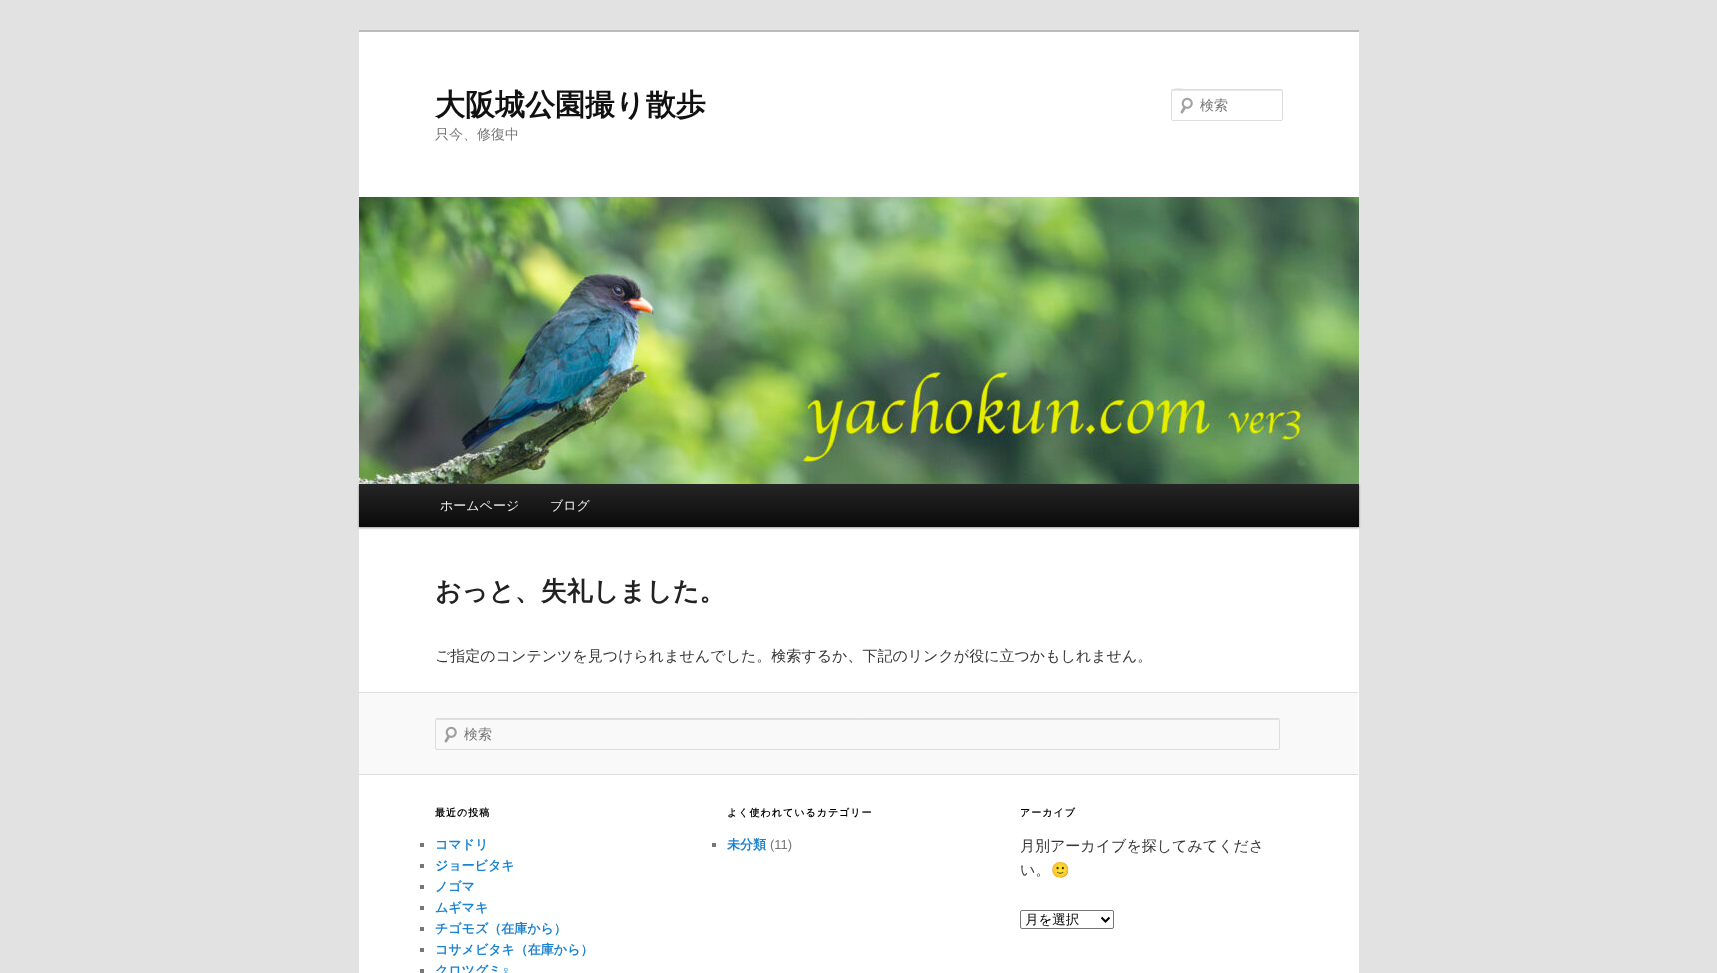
(async () => {
    const canvas = document.querySelector("canvas");
    canvas.width = 1717;
    canvas.height = 973;
    const context = canvas.getContext("2d");
    context.miterLimit = 4;
    context.fontKerning = "normal";
    function write(s, x, y, font, color) {
        context.font = font;
        context.fillStyle = color;
        context.fillText(s, x, y);
    }
    function block(x, y, w, h, color) {
        context.fillStyle = color;
        context.fillRect(x, y, w, h);
    }
    async function photo(src, x, y, w, h) {
        const img = new Image();
        img.src = src;
        await img.decode();
        context.drawImage(img, x, y, w, h);
    }
    let gradient;

    block(0, 0, 1717, 973, "rgb(226, 226, 226)");
    block(359, 32, 1000, 941, "rgb(255, 255, 255)");
    block(359, 30, 1000, 2, "rgb(187, 187, 187)");
    write("大阪城公園撮り散歩", 435, 115, "bold 30px WenQuanYi Zen Hei", "rgb(17, 17, 17)");
    write("只今、修復中", 435, 139, "500 14px WenQuanYi Zen Hei", "rgb(119, 119, 119)");
    await photo("media/1.png", 1180, 97, 13, 17);
    context.fillStyle = "rgb(230, 230, 230)";
    context.beginPath();
    context.moveTo(1173, 91);
    context.lineTo(1282, 91);
    context.lineTo(1282, 92);
    context.lineTo(1281, 90);
    context.lineTo(1191, 90);
    context.bezierCurveTo(1187, 90, 1172, 85, 1172, 92);
    context.bezierCurveTo(1172, 91, 1172, 91, 1173, 91);
    context.closePath();
    context.fill();
    context.beginPath();
    context.roundRect(1171.5, 89.5, 111, 31, 1.5);
    context.strokeStyle = "rgb(221, 221, 221)";
    context.stroke();
    write("検索", 1200, 110, "500 14px WenQuanYi Zen Hei", "rgb(119, 119, 119)");
    context.fillStyle = "rgba(0, 0, 0, 0.4)";
    context.filter = "blur(1px)";
    context.beginPath();
    context.rect(359, 485, 1000, 43);
    context.fill();
    context.filter = "none";
    await photo("media/2.png", 359, 197, 1000, 287);
    gradient = context.createLinearGradient(859, 484, 859, 527);
    gradient.addColorStop(0, "rgb(37, 37, 37)");
    gradient.addColorStop(1, "rgb(10, 10, 10)");
    context.fillStyle = gradient;
    context.fillRect(359, 484, 1000, 43);
    write("ホームページ", 440, 510, "500 13px WenQuanYi Zen Hei", "rgb(238, 238, 238)");
    write("ブログ", 550, 510, "500 13px WenQuanYi Zen Hei", "rgb(238, 238, 238)");
    write("おっと、失礼しました。", 435, 600, "bold 26px WenQuanYi Zen Hei", "rgb(34, 34, 34)");
    write("ご指定のコンテンツを見つけられませんでした。検索するか、下記のリンクが役に立つかもしれません。", 435, 661, "500 15px WenQuanYi Zen Hei", "rgb(55, 55, 55)");
    block(359, 693, 999, 81, "rgb(249, 249, 249)");
    block(359, 692, 999, 1, "rgb(221, 221, 221)");
    block(359, 774, 999, 1, "rgb(221, 221, 221)");
    await photo("media/3.png", 444, 726, 13, 17);
    context.fillStyle = "rgb(224, 224, 224)";
    context.beginPath();
    context.moveTo(437, 720);
    context.lineTo(1278, 720);
    context.bezierCurveTo(1279, 720, 1279, 720, 1279, 721);
    context.lineTo(1279, 720);
    context.lineTo(1278, 719);
    context.lineTo(437, 719);
    context.lineTo(436, 720);
    context.lineTo(436, 721);
    context.bezierCurveTo(436, 720, 436, 720, 437, 720);
    context.closePath();
    context.fill();
    context.beginPath();
    context.roundRect(435.5, 718.5, 844, 31, 1.5);
    context.stroke();
    write("検索", 464, 739, "500 14px WenQuanYi Zen Hei", "rgb(119, 119, 119)");
    context.letterSpacing = "1px";
    write("最近の投稿", 435, 816, "bold 10px WenQuanYi Zen Hei", "rgb(0, 0, 0)");
    block(420, 843, 4, 4, "rgb(119, 119, 119)");
    context.letterSpacing = "0px";
    write("コマドリ", 435, 849, "bold 13px WenQuanYi Zen Hei", "rgb(25, 130, 209)");
    block(420, 864, 4, 4, "rgb(119, 119, 119)");
    write("ジョービタキ", 435, 870, "bold 13px WenQuanYi Zen Hei", "rgb(25, 130, 209)");
    block(420, 885, 4, 4, "rgb(119, 119, 119)");
    write("ノゴマ", 435, 891, "bold 13px WenQuanYi Zen Hei", "rgb(25, 130, 209)");
    block(420, 906, 4, 4, "rgb(119, 119, 119)");
    write("ムギマキ", 435, 912, "bold 13px WenQuanYi Zen Hei", "rgb(25, 130, 209)");
    block(420, 927, 4, 4, "rgb(119, 119, 119)");
    write("チゴモズ（在庫から）", 435, 933, "bold 13px WenQuanYi Zen Hei", "rgb(25, 130, 209)");
    block(420, 948, 4, 4, "rgb(119, 119, 119)");
    write("コサメビタキ（在庫から）", 435, 954, "bold 13px WenQuanYi Zen Hei", "rgb(25, 130, 209)");
    block(420, 969, 4, 4, "rgb(119, 119, 119)");
    write("クロツグミ", 435, 975, "bold 13px WenQuanYi Zen Hei", "rgb(25, 130, 209)");
    write("♀", 501, 975, "bold 13px Liberation Sans", "rgb(25, 130, 209)");
    context.letterSpacing = "1px";
    write("よく使われているカテゴリー", 727, 816, "bold 10px WenQuanYi Zen Hei", "rgb(0, 0, 0)");
    block(712, 843, 4, 4, "rgb(119, 119, 119)");
    context.letterSpacing = "0px";
    write("未分類", 727, 849, "bold 13px WenQuanYi Zen Hei", "rgb(25, 130, 209)");
    write("(11)", 770, 849, "13px Liberation Sans", "rgb(119, 119, 119)");
    context.letterSpacing = "1px";
    write("アーカイブ", 1020, 816, "bold 10px WenQuanYi Zen Hei", "rgb(0, 0, 0)");
    context.letterSpacing = "0px";
    write("月別アーカイブを探してみてくださ", 1020, 851, "500 15px WenQuanYi Zen Hei", "rgb(55, 55, 55)");
    write("い。", 1020, 875, "500 15px WenQuanYi Zen Hei", "rgb(55, 55, 55)");
    write("🙂", 1051, 875, "15px Noto Color Emoji", "rgb(55, 55, 55)");
    context.beginPath();
    context.roundRect(1020.5, 910.5, 93, 18, 1.5);
    context.strokeStyle = "rgb(118, 118, 118)";
    context.stroke();
    context.beginPath();
    context.moveTo(1101.5, 917.5);
    context.lineTo(1105.5, 921.5);
    context.lineTo(1109.5, 917.5);
    context.strokeStyle = "rgb(0, 0, 0)";
    context.lineWidth = 2;
    context.stroke();
    write("月を選択", 1025, 924, "500 13.5px WenQuanYi Zen Hei", "rgb(0, 0, 0)");
})();
